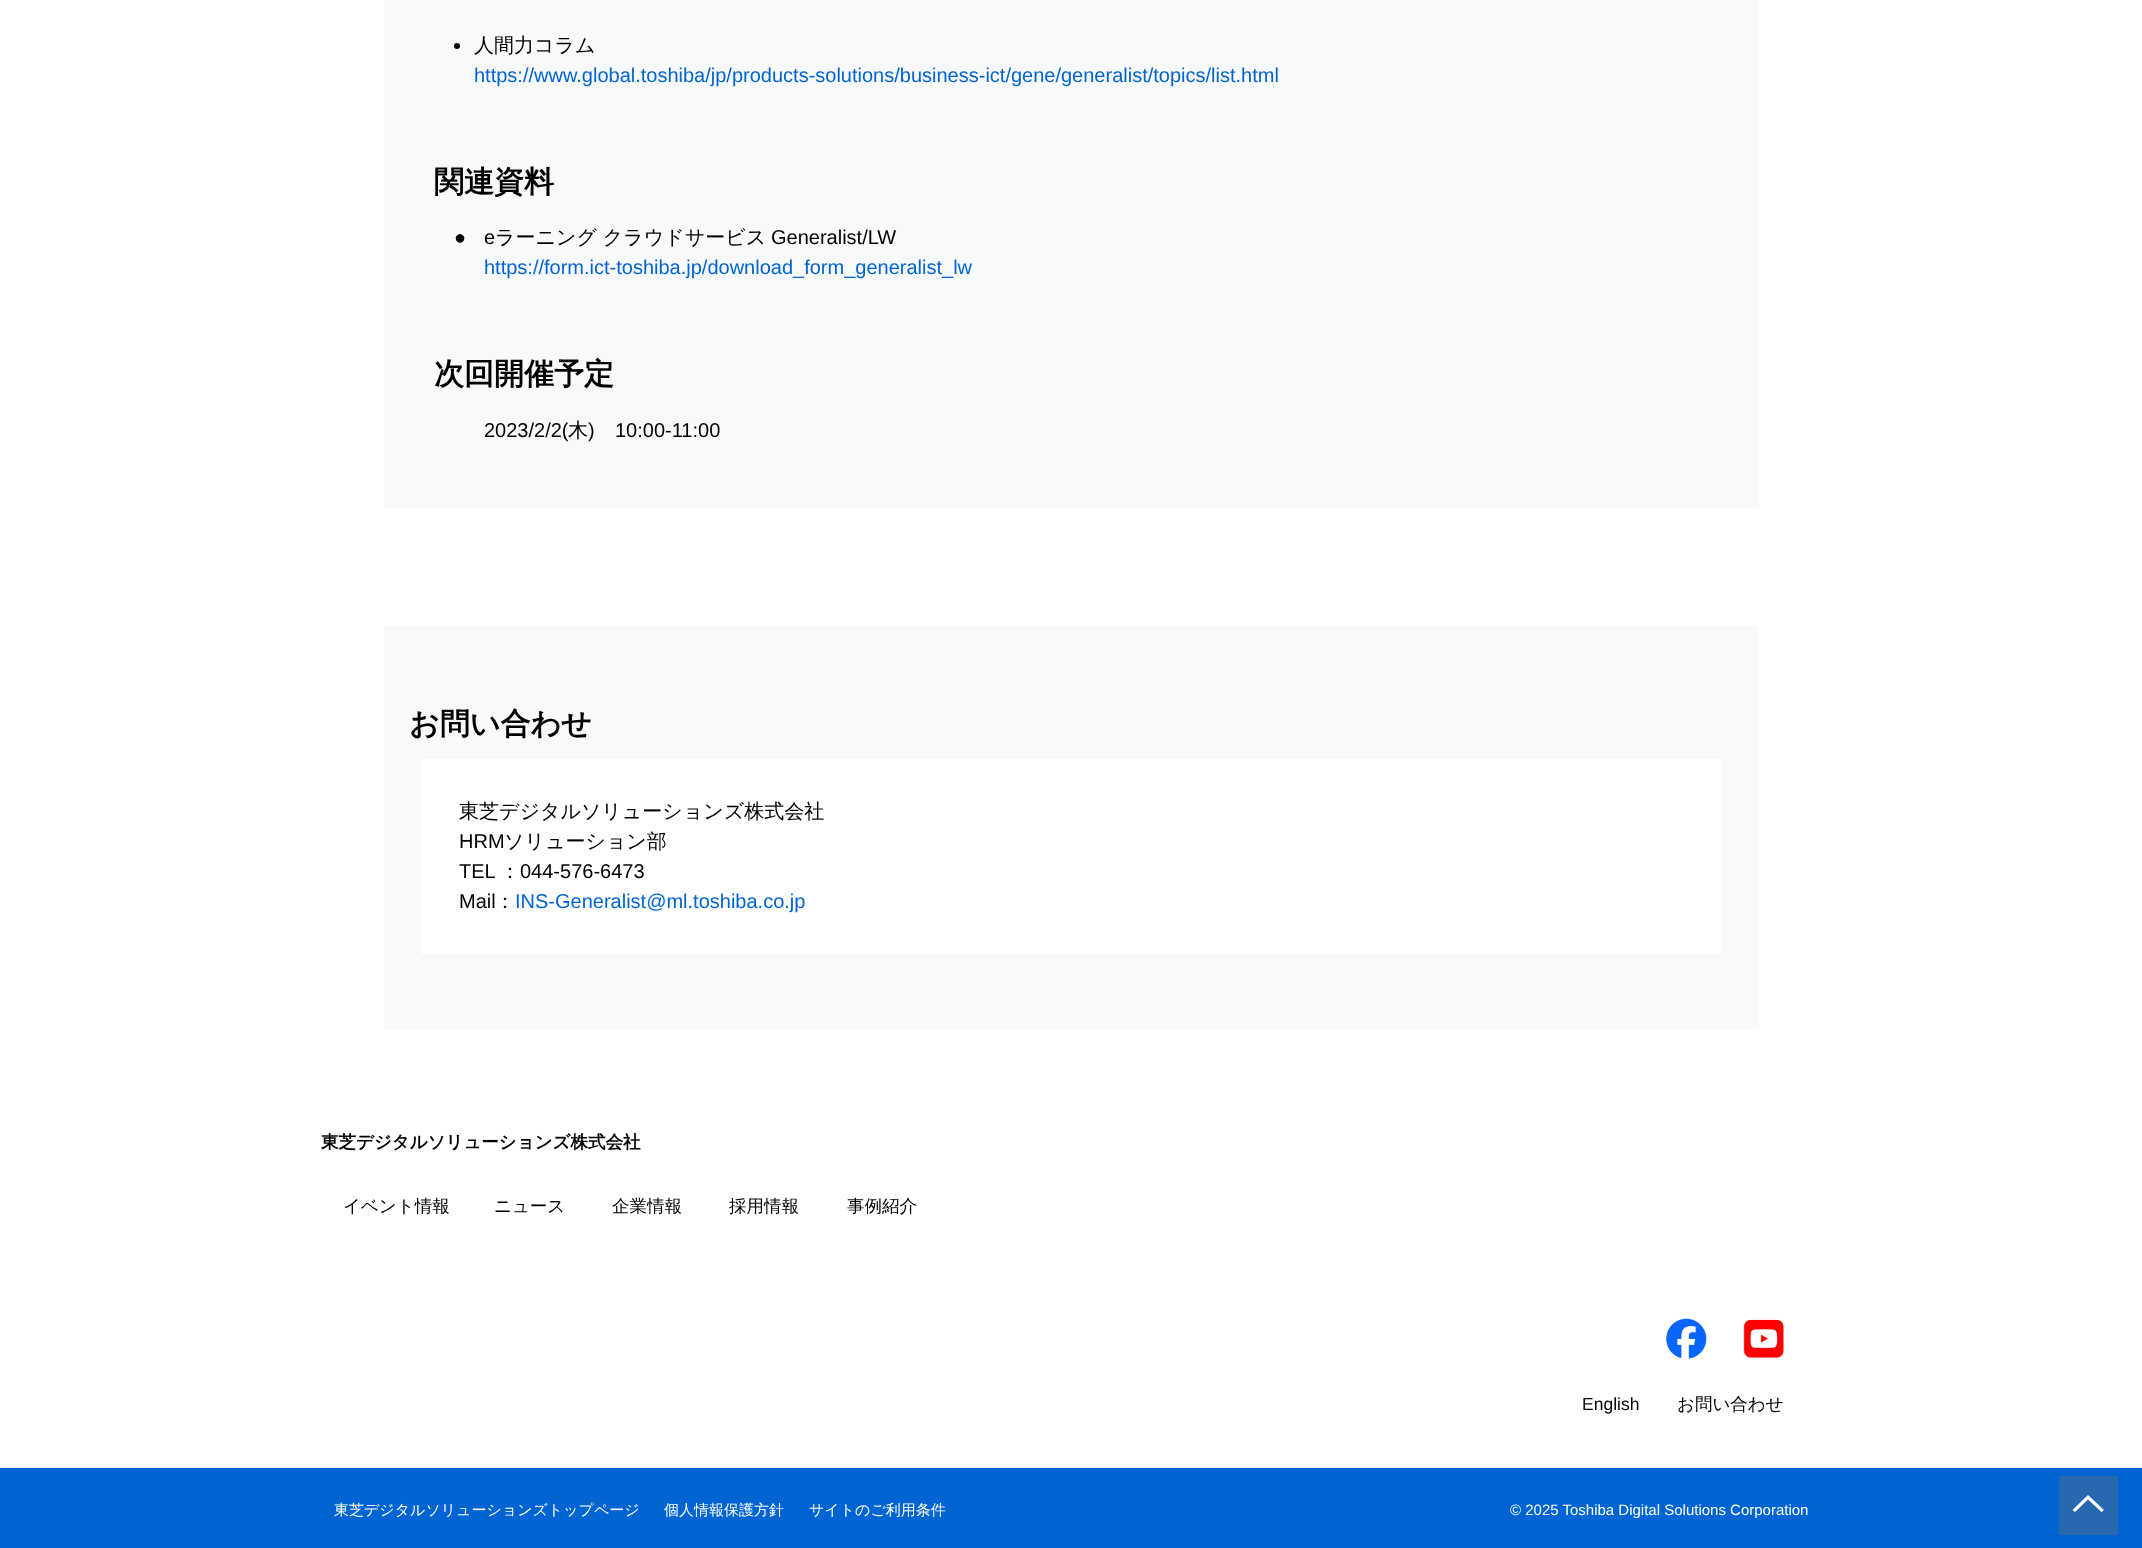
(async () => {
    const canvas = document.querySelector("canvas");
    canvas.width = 2142;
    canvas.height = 1548;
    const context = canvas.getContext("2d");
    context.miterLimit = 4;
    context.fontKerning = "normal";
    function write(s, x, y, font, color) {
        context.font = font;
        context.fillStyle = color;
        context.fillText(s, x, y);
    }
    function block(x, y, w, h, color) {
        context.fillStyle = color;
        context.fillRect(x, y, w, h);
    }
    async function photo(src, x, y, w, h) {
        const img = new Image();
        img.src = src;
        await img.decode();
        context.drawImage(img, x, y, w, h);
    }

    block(0, 0, 2142, 1548, "rgb(255, 255, 255)");
    block(384, 0, 1375, 508, "rgb(247, 249, 250)");
    context.fillStyle = "rgb(0, 0, 0)";
    context.beginPath();
    context.arc(457, 46, 3, 0, Math.PI * 2);
    context.fill();
    write("人間力コラム", 474, 52, "500 20px WenQuanYi Zen Hei", "rgb(0, 0, 0)");
    write("https://www.global.toshiba/jp/products-solutions/business-ict/gene/generalist/topics/list.html", 474, 82, "20px Liberation Sans", "rgb(0, 100, 210)");
    write("関連資料", 434, 192, "bold 30px WenQuanYi Zen Hei", "rgb(0, 0, 0)");
    write("●", 454, 244, "20px Liberation Sans", "rgb(0, 0, 0)");
    write("e", 484, 244, "20px Liberation Sans", "rgb(0, 0, 0)");
    write("ラーニング クラウドサービス", 495, 244, "500 20px WenQuanYi Zen Hei", "rgb(0, 0, 0)");
    write("Generalist/LW", 771, 244, "20px Liberation Sans", "rgb(0, 0, 0)");
    write("https://form.ict-toshiba.jp/download_form_generalist_lw", 484, 274, "20px Liberation Sans", "rgb(0, 100, 210)");
    write("次回開催予定", 434, 384, "bold 30px WenQuanYi Zen Hei", "rgb(0, 0, 0)");
    write("2023/2/2(", 484, 437, "20px Liberation Sans", "rgb(0, 0, 0)");
    write("木", 568, 437, "500 20px WenQuanYi Zen Hei", "rgb(0, 0, 0)");
    write(")", 588, 437, "20px Liberation Sans", "rgb(0, 0, 0)");
    write("10:00-11:00", 615, 437, "20px Liberation Sans", "rgb(0, 0, 0)");
    block(384, 626, 1375, 403, "rgb(247, 249, 250)");
    write("お問い合わせ", 409, 734, "bold 30px WenQuanYi Zen Hei", "rgb(0, 0, 0)");
    block(421, 759, 1300, 195, "rgb(255, 255, 255)");
    write("東芝デジタルソリューションズ株式会社", 459, 818, "500 20px WenQuanYi Zen Hei", "rgb(0, 0, 0)");
    write("HRM", 459, 848, "20px Liberation Sans", "rgb(0, 0, 0)");
    write("ソリューション部", 504, 848, "500 20px WenQuanYi Zen Hei", "rgb(0, 0, 0)");
    write("TEL", 459, 878, "20px Liberation Sans", "rgb(0, 0, 0)");
    write("：", 500, 878, "500 20px WenQuanYi Zen Hei", "rgb(0, 0, 0)");
    write("044-576-6473", 520, 878, "20px Liberation Sans", "rgb(0, 0, 0)");
    write("Mail", 459, 908, "20px Liberation Sans", "rgb(0, 0, 0)");
    write("：", 495, 908, "500 20px WenQuanYi Zen Hei", "rgb(0, 0, 0)");
    write("INS-Generalist@ml.toshiba.co.jp", 515, 908, "20px Liberation Sans", "rgb(0, 100, 210)");
    write("東芝デジタルソリューションズ株式会社", 321, 1148, "bold 17.5px WenQuanYi Zen Hei", "rgb(0, 0, 0)");
    write("イベント情報", 343, 1212, "500 17.5px WenQuanYi Zen Hei", "rgb(0, 0, 0)");
    write("ニュース", 494, 1212, "500 17.5px WenQuanYi Zen Hei", "rgb(0, 0, 0)");
    write("企業情報", 612, 1212, "500 17.5px WenQuanYi Zen Hei", "rgb(0, 0, 0)");
    write("採用情報", 729, 1212, "500 17.5px WenQuanYi Zen Hei", "rgb(0, 0, 0)");
    write("事例紹介", 847, 1212, "500 17.5px WenQuanYi Zen Hei", "rgb(0, 0, 0)");
    await photo("media/1.png", 1666, 1318, 41, 41);
    await photo("media/2.png", 1743, 1319, 41, 39);
    write("English", 1582, 1410, "17.5px Liberation Sans", "rgb(0, 0, 0)");
    write("お問い合わせ", 1677, 1410, "500 17.5px WenQuanYi Zen Hei", "rgb(0, 0, 0)");
    block(0, 1468, 2142, 80, "rgb(0, 100, 210)");
    write("東芝デジタルソリューションズトップページ", 334, 1515, "500 15px WenQuanYi Zen Hei", "rgb(255, 255, 255)");
    write("個人情報保護方針", 664, 1515, "500 15px WenQuanYi Zen Hei", "rgb(255, 255, 255)");
    write("サイトのご利用条件", 809, 1515, "500 15px WenQuanYi Zen Hei", "rgb(255, 255, 255)");
    write("© 2025 Toshiba Digital Solutions Corporation", 1510, 1515, "15px Liberation Sans", "rgb(255, 255, 255)");
    block(2059, 1476, 59, 59, "rgb(40, 104, 175)");
    context.fillStyle = "rgb(255, 255, 255)";
    context.beginPath();
    context.moveTo(2072.5, 1510);
    context.lineTo(2088, 1495);
    context.lineTo(2104, 1510);
    context.lineTo(2101.5, 1512);
    context.lineTo(2088, 1499.5);
    context.lineTo(2075, 1512);
    context.closePath();
    context.fill();
})();
